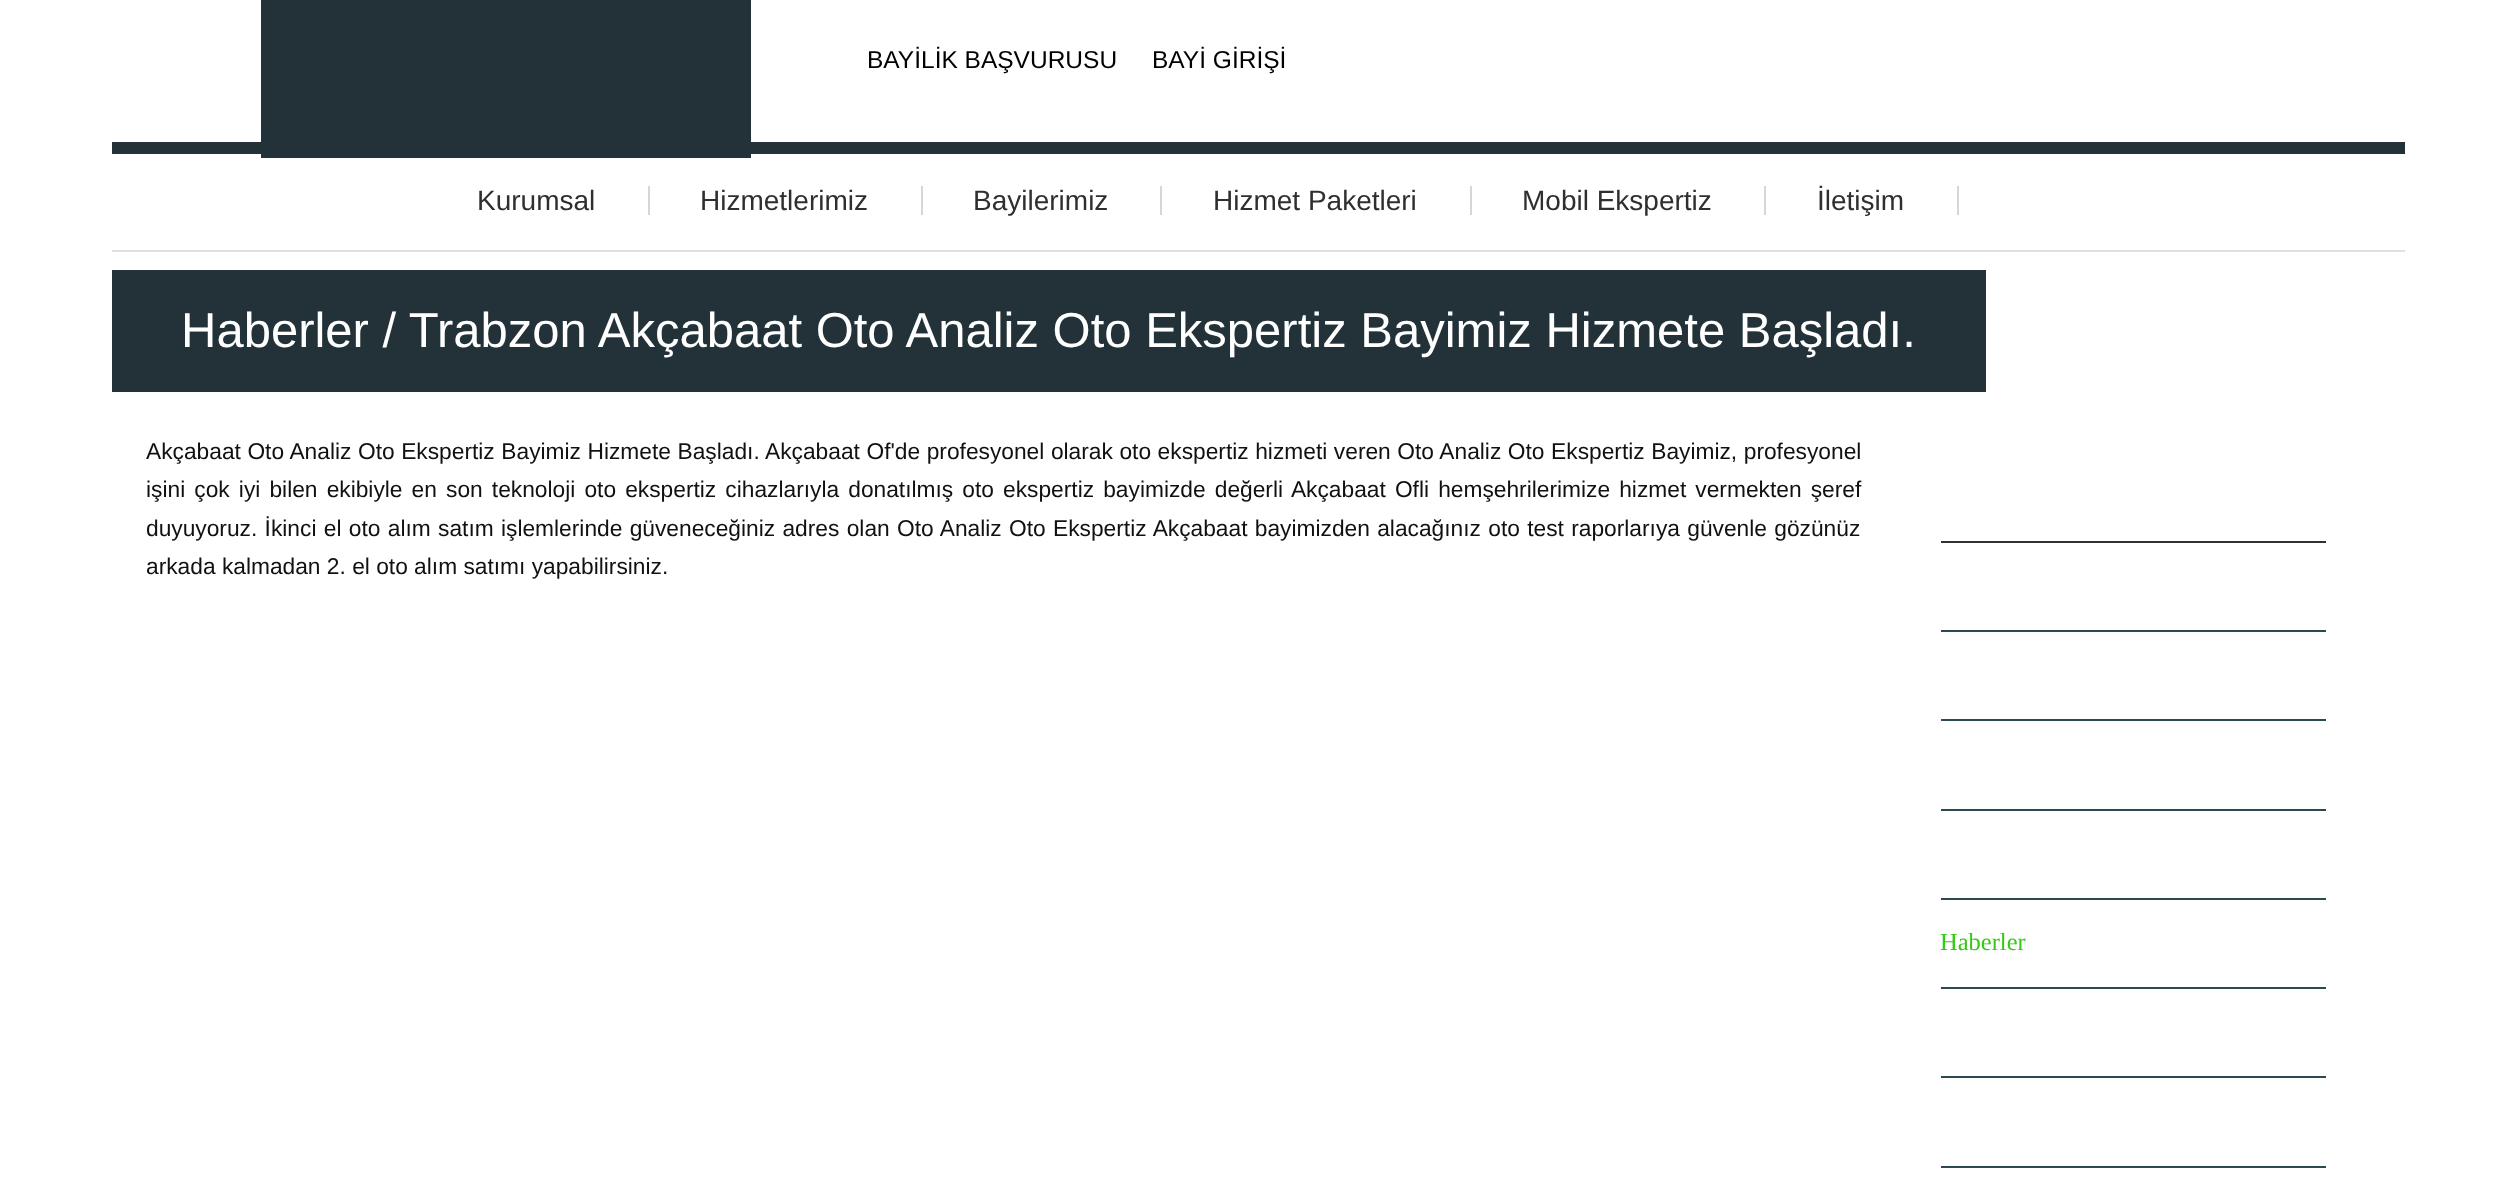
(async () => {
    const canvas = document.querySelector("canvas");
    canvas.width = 2514;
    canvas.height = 1189;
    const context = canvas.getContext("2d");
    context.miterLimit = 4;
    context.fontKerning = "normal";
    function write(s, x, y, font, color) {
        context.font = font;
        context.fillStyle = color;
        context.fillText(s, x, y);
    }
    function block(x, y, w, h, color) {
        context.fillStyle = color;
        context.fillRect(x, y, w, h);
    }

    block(0, 0, 2514, 1189, "rgb(255, 255, 255)");
    block(112, 142, 2293, 12, "rgb(34, 50, 56)");
    block(261, 0, 490, 158, "rgb(34, 50, 56)");
    write("BAYİLİK BAŞVURUSU", 867, 68, "24.5px Liberation Sans", "rgb(0, 0, 0)");
    write("BAYİ GİRİŞİ", 1152, 68, "24.5px Liberation Sans", "rgb(0, 0, 0)");
    block(112, 250, 2293, 2, "rgb(224, 224, 224)");
    write("Kurumsal", 477, 210, "28px Liberation Sans", "rgb(47, 47, 47)");
    block(648, 186, 2, 29, "rgb(214, 214, 214)");
    write("Hizmetlerimiz", 700, 210, "28px Liberation Sans", "rgb(47, 47, 47)");
    block(921, 186, 2, 29, "rgb(214, 214, 214)");
    write("Bayilerimiz", 973, 210, "28px Liberation Sans", "rgb(47, 47, 47)");
    block(1160, 186, 2, 29, "rgb(214, 214, 214)");
    write("Hizmet Paketleri", 1213, 210, "28px Liberation Sans", "rgb(47, 47, 47)");
    block(1470, 186, 2, 29, "rgb(214, 214, 214)");
    write("Mobil Ekspertiz", 1522, 210, "28px Liberation Sans", "rgb(47, 47, 47)");
    block(1764, 186, 2, 29, "rgb(214, 214, 214)");
    write("İletişim", 1817, 210, "28px Liberation Sans", "rgb(47, 47, 47)");
    block(1957, 186, 2, 29, "rgb(214, 214, 214)");
    block(112, 270, 1874, 122, "rgb(34, 50, 56)");
    write("Haberler / Trabzon Akçabaat Oto Analiz Oto Ekspertiz Bayimiz Hizmete Başladı.", 181, 347, "49px Liberation Sans", "rgb(255, 255, 255)");
    context.wordSpacing = "0.25px";
    write("Akçabaat Oto Analiz Oto Ekspertiz Bayimiz Hizmete Başladı. Akçabaat Of'de profesyonel olarak oto ekspertiz hizmeti veren Oto Analiz Oto Ekspertiz Bayimiz, profesyonel", 146, 459, "22.75px Liberation Sans", "rgb(17, 17, 17)");
    context.wordSpacing = "2.8px";
    write("işini çok iyi bilen ekibiyle en son teknoloji oto ekspertiz cihazlarıyla donatılmış oto ekspertiz bayimizde değerli Akçabaat Ofli hemşehrilerimize hizmet vermekten şeref", 146, 497, "22.75px Liberation Sans", "rgb(17, 17, 17)");
    context.wordSpacing = "1px";
    write("duyuyoruz. İkinci el oto alım satım işlemlerinde güveneceğiniz adres olan Oto Analiz Oto Ekspertiz Akçabaat bayimizden alacağınız oto test raporlarıya güvenle gözünüz", 146, 536, "22.75px Liberation Sans", "rgb(17, 17, 17)");
    context.wordSpacing = "0px";
    write("arkada kalmadan 2. el oto alım satımı yapabilirsiniz.", 146, 574, "22.75px Liberation Sans", "rgb(17, 17, 17)");
    block(1941, 541, 385, 2, "rgb(49, 49, 49)");
    block(1941, 630, 385, 2, "rgb(46, 72, 82)");
    block(1941, 719, 385, 2, "rgb(46, 72, 82)");
    block(1941, 809, 385, 2, "rgb(46, 72, 82)");
    block(1941, 898, 385, 2, "rgb(46, 72, 82)");
    block(1941, 987, 385, 2, "rgb(46, 72, 82)");
    write("Haberler", 1940, 950, "24.5px Liberation Serif", "rgb(52, 201, 18)");
    block(1941, 1076, 385, 2, "rgb(46, 72, 82)");
    block(1941, 1166, 385, 2, "rgb(46, 72, 82)");
})();
